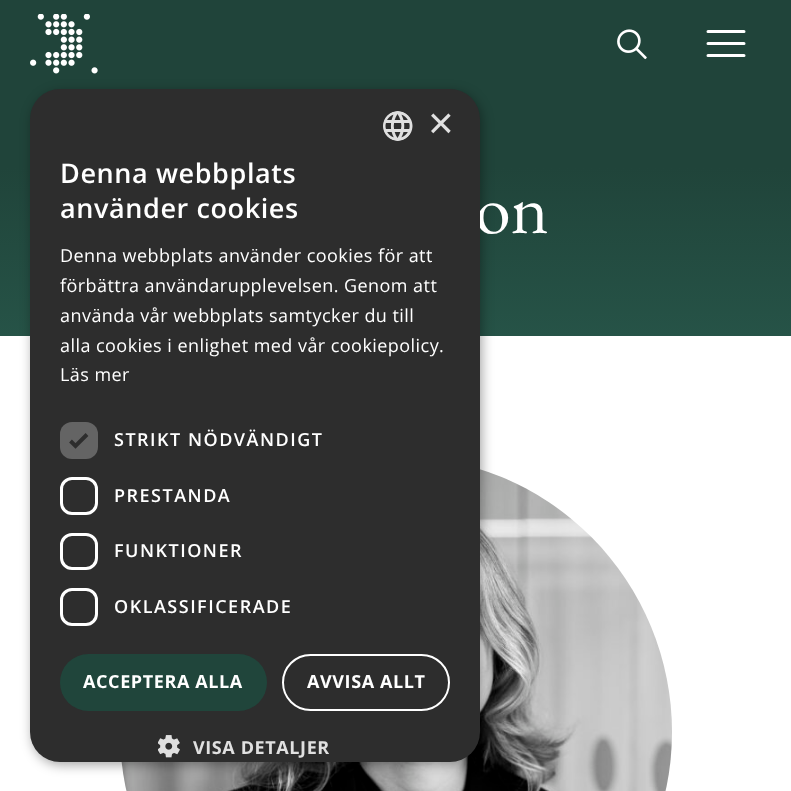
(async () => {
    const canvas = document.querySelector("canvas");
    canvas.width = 791;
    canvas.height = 791;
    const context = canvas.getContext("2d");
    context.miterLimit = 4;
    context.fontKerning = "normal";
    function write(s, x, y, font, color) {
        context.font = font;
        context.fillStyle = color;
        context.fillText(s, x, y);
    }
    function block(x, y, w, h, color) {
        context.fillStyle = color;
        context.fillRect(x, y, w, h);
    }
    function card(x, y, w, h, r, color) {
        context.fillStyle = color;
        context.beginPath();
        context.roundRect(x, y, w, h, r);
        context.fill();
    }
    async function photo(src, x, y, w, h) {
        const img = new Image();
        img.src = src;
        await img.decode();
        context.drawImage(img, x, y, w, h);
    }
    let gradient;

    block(0, 0, 791, 791, "rgb(255, 255, 255)");
    gradient = context.createLinearGradient(396, 0, 396, 336);
    gradient.addColorStop(0, "rgb(32, 68, 58)");
    gradient.addColorStop(0.5, "rgb(32, 68, 58)");
    gradient.addColorStop(1, "rgb(38, 83, 71)");
    context.fillStyle = gradient;
    context.fillRect(0, 0, 791, 336);
    await photo("media/3.png", 30, 14, 68, 60);
    await photo("media/5.png", 121, 469, 551, 322);
    context.fillStyle = "rgba(0, 0, 0, 0.35)";
    context.filter = "blur(6px)";
    context.beginPath();
    context.roundRect(32, 92, 450, 673, 30);
    context.fill();
    context.filter = "none";
    write("on", 475, 233, "72px EB Garamond", "rgb(255, 255, 255)");
    card(30, 89, 450, 673, 30, "rgb(45, 45, 45)");
    await photo("media/1.png", 383, 111, 30, 30);
    write("×", 428, 138, "44px Liberation Sans", "rgb(224, 224, 224)");
    context.letterSpacing = "0.6px";
    write("Denna webbplats", 60, 183, "600 27px Open Sans", "rgb(255, 255, 255)");
    write("använder cookies", 60, 218, "600 27px Open Sans", "rgb(255, 255, 255)");
    context.letterSpacing = "0.45px";
    write("Denna webbplats använder cookies för att", 60, 262, "18px Open Sans", "rgb(255, 255, 255)");
    write("förbättra användarupplevelsen. Genom att", 60, 292, "18px Open Sans", "rgb(255, 255, 255)");
    write("använda vår webbplats samtycker du till", 60, 322, "18px Open Sans", "rgb(255, 255, 255)");
    write("alla cookies i enlighet med vår cookiepolicy.", 60, 352, "18px Open Sans", "rgb(255, 255, 255)");
    write("Läs mer", 60, 381, "18px Open Sans", "rgb(255, 255, 255)");
    card(60, 422, 38, 37, 12, "rgb(100, 100, 100)");
    context.beginPath();
    context.moveTo(70.5, 441);
    context.lineTo(75.5, 446);
    context.lineTo(87, 434.5);
    context.strokeStyle = "rgb(45, 45, 45)";
    context.lineWidth = 3.9;
    context.stroke();
    context.letterSpacing = "1.5px";
    write("STRIKT NÖDVÄNDIGT", 114, 446, "600 18px Open Sans", "rgb(255, 255, 255)");
    context.beginPath();
    context.roundRect(61.5, 478.5, 35, 35, 10.5);
    context.strokeStyle = "rgb(255, 255, 255)";
    context.lineWidth = 3;
    context.stroke();
    write("PRESTANDA", 114, 502, "600 18px Open Sans", "rgb(255, 255, 255)");
    context.beginPath();
    context.roundRect(61.5, 534.5, 35, 34, 10.5);
    context.stroke();
    write("FUNKTIONER", 114, 557, "600 18px Open Sans", "rgb(255, 255, 255)");
    context.beginPath();
    context.roundRect(61.5, 589.5, 35, 35, 10.5);
    context.stroke();
    write("OKLASSIFICERADE", 114, 613, "600 18px Open Sans", "rgb(255, 255, 255)");
    card(60, 654, 207, 57, 28.5, "rgb(32, 69, 59)");
    context.letterSpacing = "0.6px";
    write("ACCEPTERA ALLA", 83, 688, "bold 18px Open Sans", "rgb(255, 255, 255)");
    context.beginPath();
    context.roundRect(283, 655, 166, 55, 27.5);
    context.lineWidth = 2;
    context.stroke();
    write("AVVISA ALLT", 307, 688, "bold 18px Open Sans", "rgb(255, 255, 255)");
    await photo("media/2.png", 158, 735, 22, 23);
    write("VISA DETALJER", 193, 754, "bold 18px Open Sans", "rgb(224, 224, 224)");
    await photo("media/4.png", 617, 29, 30, 31);
    context.beginPath();
    context.moveTo(708, 43.5);
    context.lineTo(744, 43.5);
    context.moveTo(708, 31.5);
    context.lineTo(744, 31.5);
    context.moveTo(708, 55.5);
    context.lineTo(744, 55.5);
    context.lineWidth = 3;
    context.lineCap = "round";
    context.lineJoin = "round";
    context.stroke();
})();
